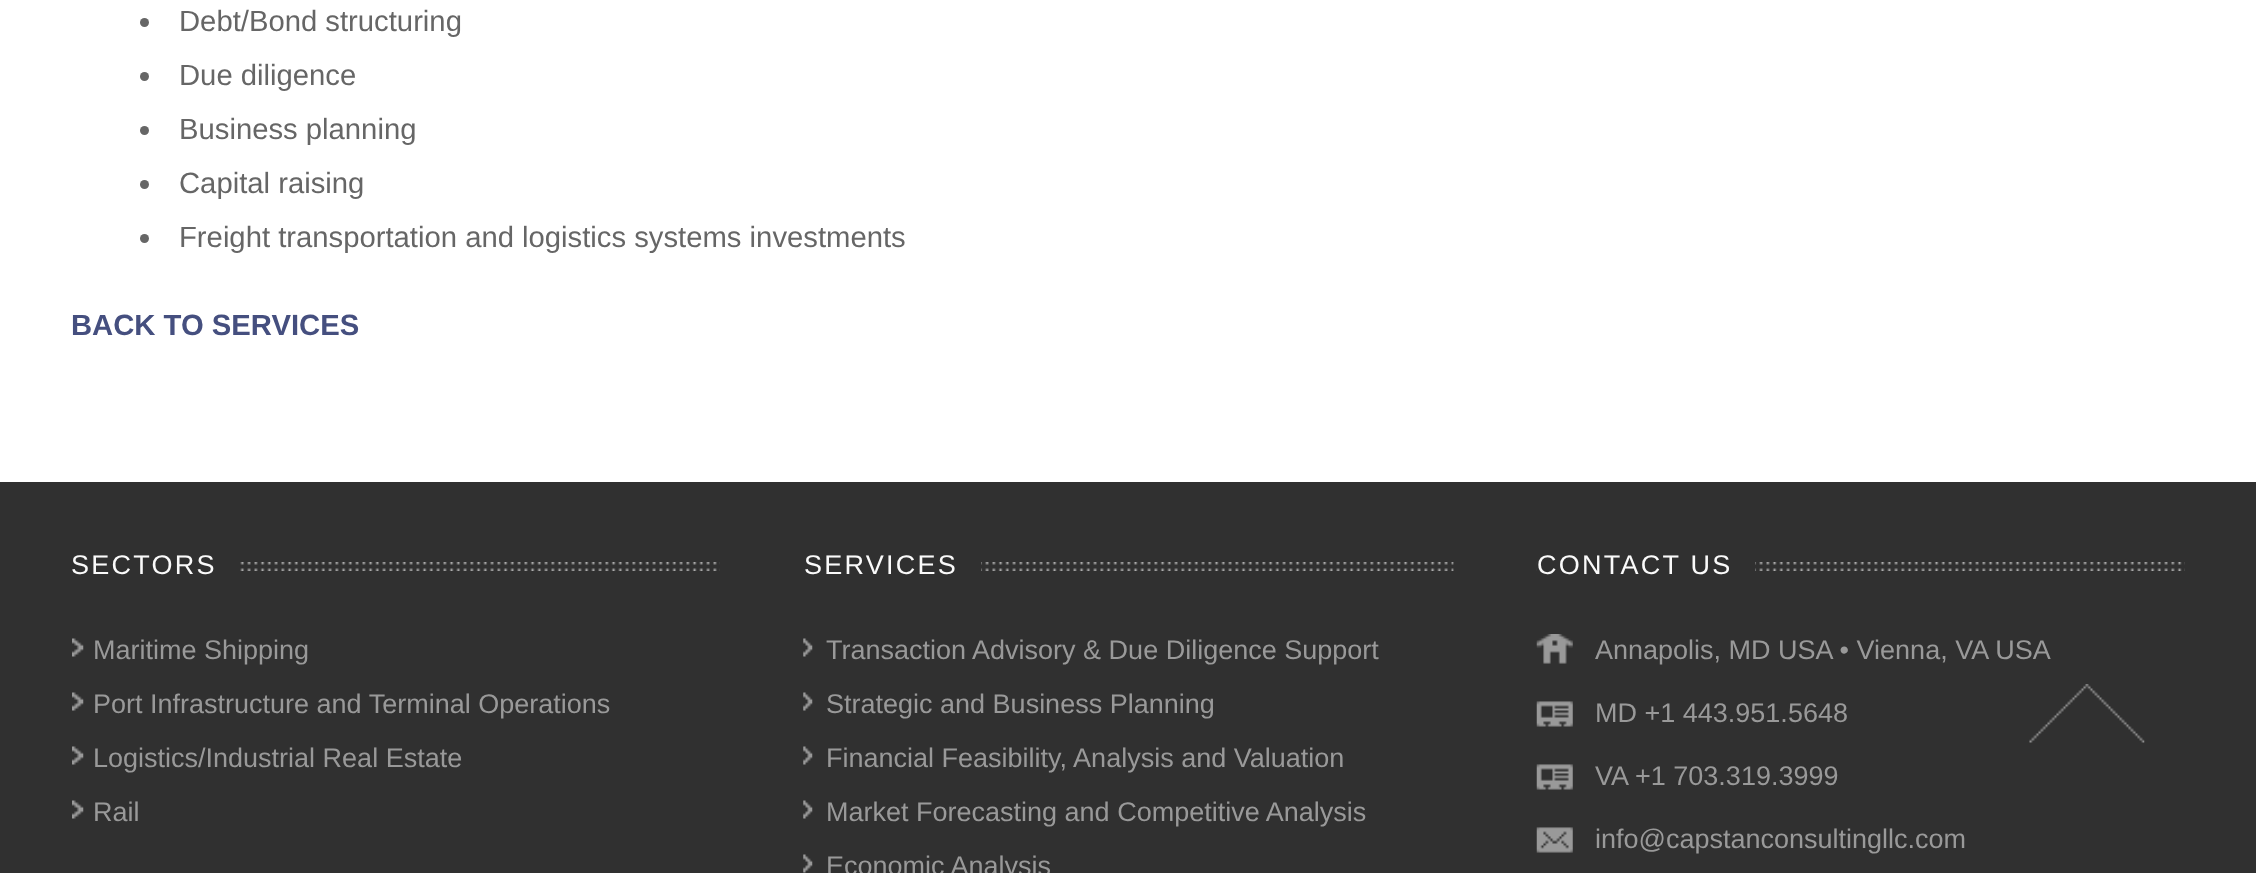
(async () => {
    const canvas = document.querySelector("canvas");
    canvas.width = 2256;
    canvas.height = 873;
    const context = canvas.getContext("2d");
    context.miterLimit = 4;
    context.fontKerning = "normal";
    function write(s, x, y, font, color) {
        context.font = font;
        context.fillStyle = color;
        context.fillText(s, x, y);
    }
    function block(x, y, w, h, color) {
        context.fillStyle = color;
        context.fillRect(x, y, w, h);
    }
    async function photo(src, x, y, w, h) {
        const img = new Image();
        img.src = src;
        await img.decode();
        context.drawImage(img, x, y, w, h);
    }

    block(0, 0, 2256, 873, "rgb(255, 255, 255)");
    context.fillStyle = "rgb(102, 102, 102)";
    context.beginPath();
    context.arc(144.5, 22.5, 4.5, 0, Math.PI * 2);
    context.fill();
    write("Debt/Bond structuring", 179, 31, "29.25px Liberation Sans", "rgb(102, 102, 102)");
    context.beginPath();
    context.arc(144.5, 76.5, 4.5, 0, Math.PI * 2);
    context.fill();
    write("Due diligence", 179, 85, "29.25px Liberation Sans", "rgb(102, 102, 102)");
    context.beginPath();
    context.arc(144.5, 130.5, 4.5, 0, Math.PI * 2);
    context.fill();
    write("Business planning", 179, 139, "29.25px Liberation Sans", "rgb(102, 102, 102)");
    context.beginPath();
    context.arc(144.5, 184.5, 4.5, 0, Math.PI * 2);
    context.fill();
    write("Capital raising", 179, 193, "29.25px Liberation Sans", "rgb(102, 102, 102)");
    context.beginPath();
    context.arc(144.5, 238.5, 4.5, 0, Math.PI * 2);
    context.fill();
    write("Freight transportation and logistics systems investments", 179, 247, "29.25px Liberation Sans", "rgb(102, 102, 102)");
    write("BACK TO SERVICES", 71, 335, "bold 29.25px Liberation Sans", "rgb(69, 79, 127)");
    block(0, 482, 2256, 391, "rgb(48, 48, 48)");
    await photo("media/1.png", 240, 562, 480, 9);
    context.letterSpacing = "2.25px";
    write("SECTORS", 71, 574, "27px Liberation Sans", "rgb(250, 250, 250)");
    await photo("media/2.png", 72, 638, 12, 19);
    context.letterSpacing = "0px";
    write("Maritime Shipping", 93, 659, "27px Liberation Sans", "rgb(153, 153, 153)");
    await photo("media/2.png", 72, 692, 12, 19);
    write("Port Infrastructure and Terminal Operations", 93, 713, "27px Liberation Sans", "rgb(153, 153, 153)");
    await photo("media/2.png", 72, 746, 12, 19);
    write("Logistics/Industrial Real Estate", 93, 767, "27px Liberation Sans", "rgb(153, 153, 153)");
    await photo("media/2.png", 72, 800, 12, 19);
    write("Rail", 93, 821, "27px Liberation Sans", "rgb(153, 153, 153)");
    await photo("media/3.png", 981, 562, 473, 9);
    context.letterSpacing = "2.25px";
    write("SERVICES", 804, 574, "27px Liberation Sans", "rgb(250, 250, 250)");
    await photo("media/4.png", 803, 638, 10, 19);
    context.letterSpacing = "0px";
    write("Transaction Advisory & Due Diligence Support", 826, 659, "27px Liberation Sans", "rgb(153, 153, 153)");
    await photo("media/4.png", 803, 692, 10, 19);
    write("Strategic and Business Planning", 826, 713, "27px Liberation Sans", "rgb(153, 153, 153)");
    await photo("media/4.png", 803, 746, 10, 19);
    write("Financial Feasibility, Analysis and Valuation", 826, 767, "27px Liberation Sans", "rgb(153, 153, 153)");
    await photo("media/4.png", 803, 800, 10, 19);
    write("Market Forecasting and Competitive Analysis", 826, 821, "27px Liberation Sans", "rgb(153, 153, 153)");
    await photo("media/4.png", 803, 854, 10, 19);
    write("Economic Analysis", 826, 875, "27px Liberation Sans", "rgb(153, 153, 153)");
    await photo("media/5.png", 1536, 562, 649, 9);
    block(1537, 562, 218, 9, "rgb(48, 48, 48)");
    context.letterSpacing = "2.25px";
    write("CONTACT US", 1537, 574, "27px Liberation Sans", "rgb(250, 250, 250)");
    await photo("media/6.png", 1536, 634, 37, 30);
    context.letterSpacing = "0px";
    write("Annapolis, MD USA • Vienna, VA USA", 1595, 659, "27px Liberation Sans", "rgb(153, 153, 153)");
    await photo("media/7.png", 1536, 701, 37, 26);
    write("MD +1 443.951.5648", 1595, 722, "27px Liberation Sans", "rgb(153, 153, 153)");
    await photo("media/7.png", 1536, 764, 37, 26);
    write("VA +1 703.319.3999", 1595, 785, "27px Liberation Sans", "rgb(153, 153, 153)");
    await photo("media/8.png", 1536, 827, 37, 26);
    write("info@capstanconsultingllc.com", 1595, 848, "27px Liberation Sans", "rgb(153, 153, 153)");
    await photo("media/9.png", 2029, 684, 116, 59);
})();
